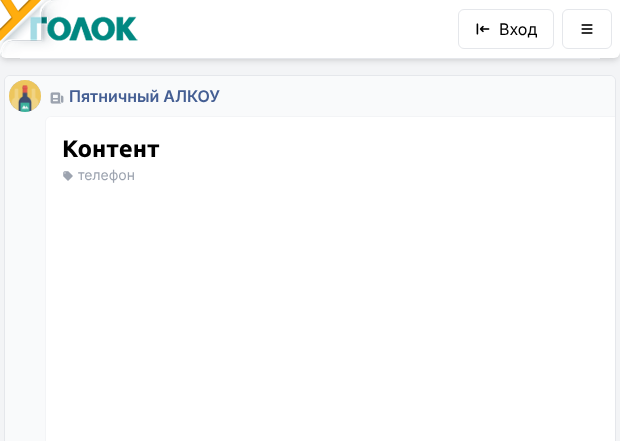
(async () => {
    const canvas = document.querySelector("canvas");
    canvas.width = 620;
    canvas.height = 441;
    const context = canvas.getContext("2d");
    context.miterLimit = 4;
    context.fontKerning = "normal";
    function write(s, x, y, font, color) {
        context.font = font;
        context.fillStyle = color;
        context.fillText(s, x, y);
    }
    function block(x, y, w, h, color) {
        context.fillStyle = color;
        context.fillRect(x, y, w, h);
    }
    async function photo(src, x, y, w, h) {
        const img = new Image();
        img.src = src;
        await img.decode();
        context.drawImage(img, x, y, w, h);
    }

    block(0, 0, 620, 441, "rgb(243, 244, 246)");
    context.fillStyle = "rgba(0, 0, 0, 0.06)";
    context.filter = "blur(2px)";
    context.beginPath();
    context.roundRect(1, 3, 618, 56, 5);
    context.fill();
    context.filter = "none";
    context.fillStyle = "rgba(0, 0, 0, 0.1)";
    context.filter = "blur(3px)";
    context.beginPath();
    context.roundRect(1, 5, 618, 56, 5);
    context.fill();
    context.filter = "none";
    context.fillStyle = "rgb(255, 255, 255)";
    context.beginPath();
    context.roundRect(0, 0, 620, 58, [0, 0, 6, 6]);
    context.fill();
    await photo("media/1.png", 0, 0, 138, 57);
    context.beginPath();
    context.roundRect(458.5, 9.5, 95, 39, 5.5);
    context.strokeStyle = "rgb(229, 231, 235)";
    context.stroke();
    await photo("media/2.png", 476, 23, 14, 12);
    write("Вход", 499, 35, "16px Inter", "rgb(0, 0, 0)");
    context.beginPath();
    context.roundRect(562.5, 9.5, 49, 39, 5.5);
    context.stroke();
    await photo("media/3.png", 581, 24, 12, 10);
    block(20, 58, 580, 1, "rgb(229, 231, 235)");
    context.fillStyle = "rgb(249, 250, 251)";
    context.beginPath();
    context.roundRect(4.5, 75.5, 611, 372, 5.5);
    context.fill();
    context.stroke();
    context.beginPath();
    context.roundRect(5, 76, 610, 40, [5, 5, 0, 0]);
    context.fill();
    await photo("media/4.png", 9, 80, 32, 32);
    await photo("media/5.png", 50, 92, 14, 12);
    write("Пятничный АЛКОУ", 69, 102, "600 16px Inter", "rgb(68, 94, 147)");
    context.fillStyle = "rgb(255, 255, 255)";
    context.beginPath();
    context.moveTo(51, 117);
    context.lineTo(615, 117);
    context.lineTo(615, 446);
    context.lineTo(51, 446);
    context.bezierCurveTo(48, 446, 46, 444, 46, 441);
    context.lineTo(46, 122);
    context.bezierCurveTo(46, 119, 48, 117, 51, 117);
    context.closePath();
    context.fill();
    context.fillStyle = "rgb(243, 244, 246)";
    context.beginPath();
    context.moveTo(51, 116);
    context.lineTo(615, 116);
    context.lineTo(615, 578);
    context.lineTo(51, 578);
    context.bezierCurveTo(48, 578, 45, 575, 45, 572);
    context.lineTo(45, 122);
    context.bezierCurveTo(45, 119, 48, 116, 51, 116);
    context.closePath();
    context.moveTo(51, 117);
    context.lineTo(615, 117);
    context.lineTo(615, 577);
    context.lineTo(51, 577);
    context.bezierCurveTo(48, 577, 46, 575, 46, 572);
    context.lineTo(46, 122);
    context.bezierCurveTo(46, 119, 48, 117, 51, 117);
    context.closePath();
    context.fill("evenodd");
    write("Контент", 62, 157, "bold 24px Ubuntu", "rgb(0, 0, 0)");
    await photo("media/6.png", 63, 171, 10, 10);
    write("телефон", 78, 180, "14px Inter", "rgb(156, 163, 175)");
})();
